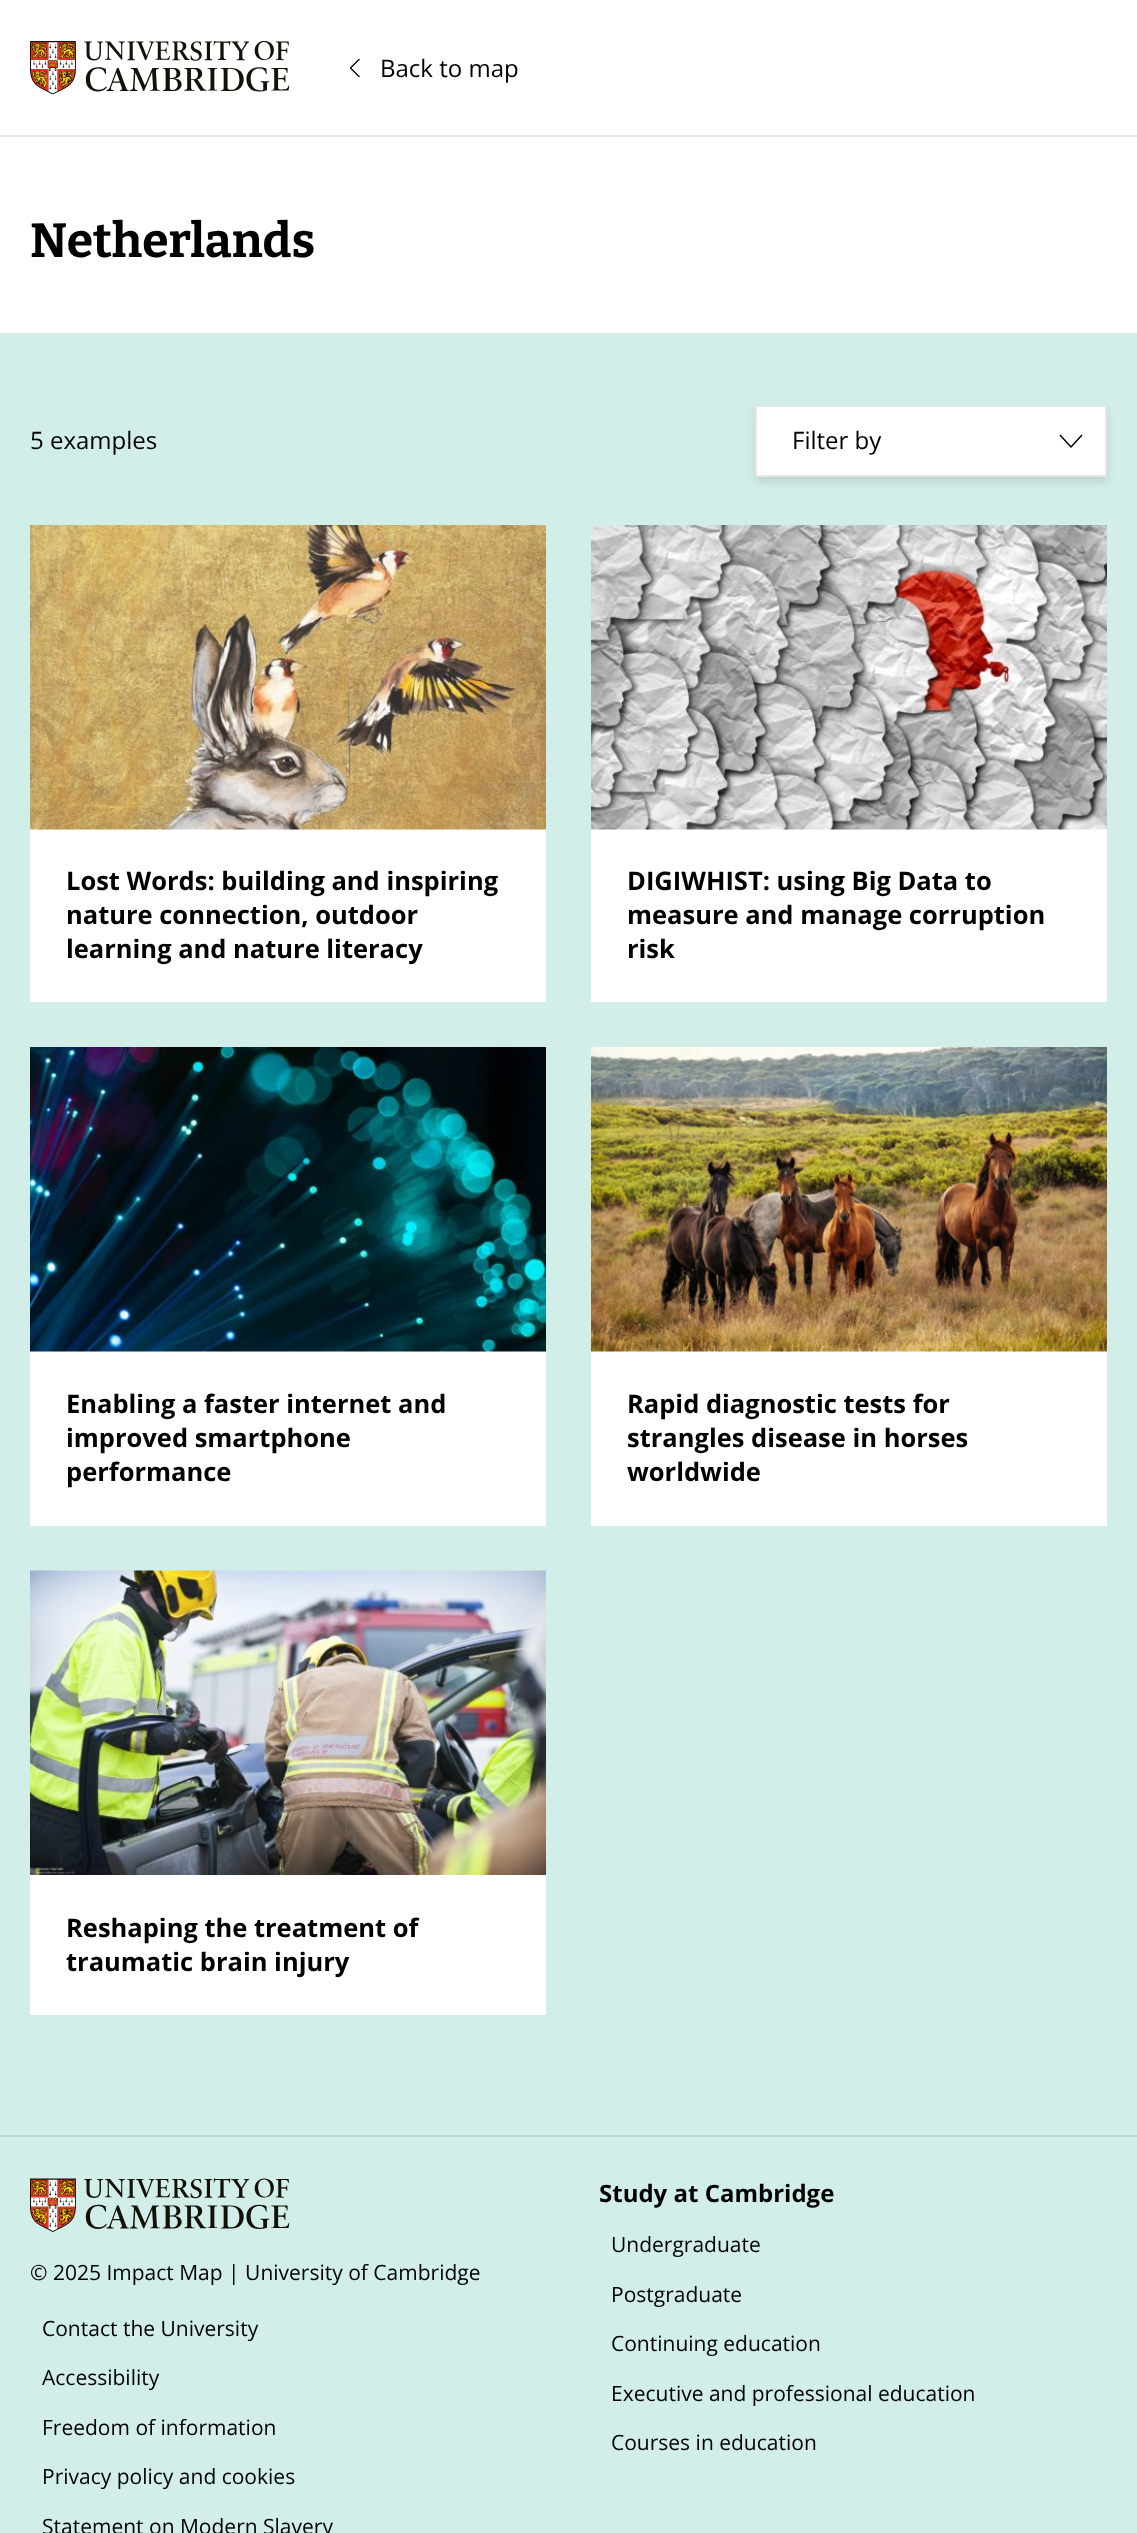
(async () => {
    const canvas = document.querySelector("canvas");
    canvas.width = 1137;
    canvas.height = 2533;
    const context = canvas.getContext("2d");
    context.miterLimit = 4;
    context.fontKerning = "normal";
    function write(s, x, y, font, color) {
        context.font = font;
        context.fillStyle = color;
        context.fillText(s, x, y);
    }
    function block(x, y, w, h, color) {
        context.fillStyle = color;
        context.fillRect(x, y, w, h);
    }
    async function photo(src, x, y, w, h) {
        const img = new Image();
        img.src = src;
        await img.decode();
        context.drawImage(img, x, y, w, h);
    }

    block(0, 0, 1137, 2533, "rgb(255, 255, 255)");
    block(0, 135, 1137, 2, "rgb(230, 230, 230)");
    await photo("media/1.png", 30, 41, 260, 54);
    context.save();
    context.beginPath();
    context.rect(350, 59, 10, 18);
    context.clip();
    context.beginPath();
    context.moveTo(359.5, 77);
    context.lineTo(350.5, 68);
    context.lineTo(359.5, 59);
    context.strokeStyle = "rgb(0, 0, 0)";
    context.lineWidth = 1.3;
    context.stroke();
    context.restore();
    write("Back to map", 380, 77, "24px Open Sans", "rgb(0, 0, 0)");
    write("Netherlands", 30, 257, "100 48px Bitter", "rgb(0, 0, 0)");
    block(0, 333, 1137, 1802, "rgb(209, 238, 233)");
    write("5 examples", 30, 449, "24px Open Sans", "rgb(0, 0, 0)");
    context.fillStyle = "rgba(0, 0, 0, 0.1)";
    context.filter = "blur(4.5px)";
    context.beginPath();
    context.rect(755, 410, 352, 72);
    context.fill();
    context.filter = "none";
    context.fillStyle = "rgb(254, 255, 254)";
    context.beginPath();
    context.rect(756, 406, 350, 70);
    context.fill();
    context.strokeStyle = "rgb(229, 230, 229)";
    context.lineWidth = 2;
    context.stroke();
    write("Filter by", 792, 449, "24px Open Sans", "rgb(0, 0, 0)");
    context.beginPath();
    context.moveTo(1060, 435);
    context.lineTo(1071, 447);
    context.lineTo(1082, 435);
    context.strokeStyle = "rgb(0, 0, 0)";
    context.lineWidth = 1.5;
    context.stroke();
    block(30, 829, 516, 173, "rgb(254, 255, 254)");
    await photo("media/2.png", 30, 525, 516, 305);
    write("Lost Words: building and inspiring", 66, 890, "bold 25.5px Open Sans", "rgb(0, 0, 0)");
    write("nature connection, outdoor", 66, 924, "bold 25.5px Open Sans", "rgb(0, 0, 0)");
    write("learning and nature literacy", 66, 958, "bold 25.5px Open Sans", "rgb(0, 0, 0)");
    block(591, 829, 516, 173, "rgb(254, 255, 254)");
    await photo("media/3.png", 591, 525, 516, 305);
    write("DIGIWHIST: using Big Data to", 627, 890, "bold 25.5px Open Sans", "rgb(0, 0, 0)");
    write("measure and manage corruption", 627, 924, "bold 25.5px Open Sans", "rgb(0, 0, 0)");
    write("risk", 627, 958, "bold 25.5px Open Sans", "rgb(0, 0, 0)");
    block(30, 1351, 516, 175, "rgb(254, 255, 254)");
    await photo("media/4.png", 30, 1047, 516, 305);
    write("Enabling a faster internet and", 66, 1413, "bold 25.5px Open Sans", "rgb(0, 0, 0)");
    write("improved smartphone", 66, 1447, "bold 25.5px Open Sans", "rgb(0, 0, 0)");
    write("performance", 66, 1481, "bold 25.5px Open Sans", "rgb(0, 0, 0)");
    block(591, 1351, 516, 175, "rgb(254, 255, 254)");
    await photo("media/5.png", 591, 1047, 516, 305);
    write("Rapid diagnostic tests for", 627, 1413, "bold 25.5px Open Sans", "rgb(0, 0, 0)");
    write("strangles disease in horses", 627, 1447, "bold 25.5px Open Sans", "rgb(0, 0, 0)");
    write("worldwide", 627, 1481, "bold 25.5px Open Sans", "rgb(0, 0, 0)");
    block(30, 1875, 516, 140, "rgb(254, 255, 254)");
    await photo("media/6.png", 30, 1570, 516, 305);
    write("Reshaping the treatment of", 66, 1937, "bold 25.5px Open Sans", "rgb(0, 0, 0)");
    write("traumatic brain injury", 66, 1971, "bold 25.5px Open Sans", "rgb(0, 0, 0)");
    block(0, 2137, 1137, 396, "rgb(209, 238, 233)");
    block(0, 2135, 1137, 2, "rgb(188, 214, 210)");
    await photo("media/7.png", 30, 2178, 260, 54);
    write("© 2025 Impact Map | University of Cambridge", 30, 2280, "21px Open Sans", "rgb(0, 0, 0)");
    write("Contact the University", 42, 2336, "21px Open Sans", "rgb(0, 0, 0)");
    write("Accessibility", 42, 2385, "21px Open Sans", "rgb(0, 0, 0)");
    write("Freedom of information", 42, 2435, "21px Open Sans", "rgb(0, 0, 0)");
    write("Privacy policy and cookies", 42, 2484, "21px Open Sans", "rgb(0, 0, 0)");
    write("Statement on Modern Slavery", 42, 2534, "21px Open Sans", "rgb(0, 0, 0)");
    write("Study at Cambridge", 599, 2202, "bold 24px Open Sans", "rgb(0, 0, 0)");
    write("Undergraduate", 611, 2252, "21px Open Sans", "rgb(0, 0, 0)");
    write("Postgraduate", 611, 2302, "21px Open Sans", "rgb(0, 0, 0)");
    write("Continuing education", 611, 2351, "21px Open Sans", "rgb(0, 0, 0)");
    write("Executive and professional education", 611, 2401, "21px Open Sans", "rgb(0, 0, 0)");
    write("Courses in education", 611, 2450, "21px Open Sans", "rgb(0, 0, 0)");
})();
